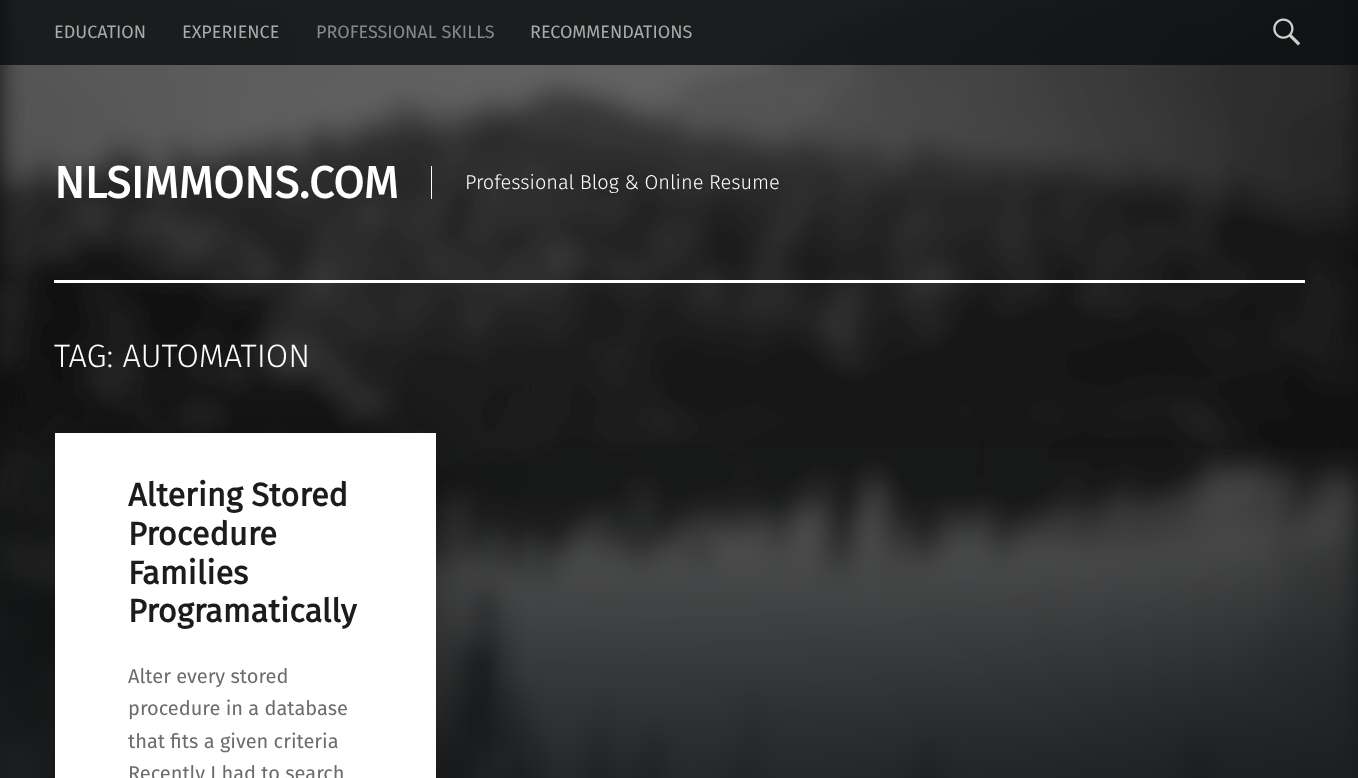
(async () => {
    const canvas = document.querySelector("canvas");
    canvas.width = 1358;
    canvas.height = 778;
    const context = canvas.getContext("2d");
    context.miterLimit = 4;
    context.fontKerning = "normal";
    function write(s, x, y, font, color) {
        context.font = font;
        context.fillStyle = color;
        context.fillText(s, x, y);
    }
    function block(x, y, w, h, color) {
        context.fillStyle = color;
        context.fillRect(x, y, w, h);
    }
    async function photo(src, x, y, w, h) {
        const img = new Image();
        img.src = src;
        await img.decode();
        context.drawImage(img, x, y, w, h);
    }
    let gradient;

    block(0, 0, 1358, 778, "rgb(16, 17, 18)");
    await photo("media/1.png", 0, 0, 1358, 778);
    gradient = context.createLinearGradient(679, 345, 679, 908);
    gradient.addColorStop(0, "rgba(26, 28, 30, 0)");
    gradient.addColorStop(1, "rgb(26, 28, 30)");
    context.fillStyle = gradient;
    context.fillRect(0, 448, 1358, 330);
    block(0, 0, 1358, 65, "rgba(10, 12, 14, 0.8)");
    write("EDUCATION", 54, 38, "18px Fira Sans", "rgb(169, 169, 169)");
    write("EXPERIENCE", 182, 38, "18px Fira Sans", "rgb(169, 169, 169)");
    write("PROFESSIONAL SKILLS", 316, 38, "18px Fira Sans", "rgb(136, 137, 138)");
    write("RECOMMENDATIONS", 530, 38, "18px Fira Sans", "rgb(169, 169, 169)");
    await photo("media/2.png", 1273, 18, 28, 28);
    write("NLSIMMONS.COM", 54, 198, "bold 44.75px Fira Sans", "rgb(255, 255, 255)");
    block(431, 166, 1, 33, "rgb(255, 255, 255)");
    write("Professional Blog & Online Resume", 465, 189, "300 20px Fira Sans", "rgb(255, 255, 255)");
    block(54, 280, 1251, 3, "rgb(255, 255, 255)");
    write("TAG: AUTOMATION", 54, 367, "300 32.5px Fira Sans", "rgb(255, 255, 255)");
    context.fillStyle = "rgba(0, 0, 0, 0.4)";
    context.filter = "blur(40px)";
    context.beginPath();
    context.rect(55, 433, 381, 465);
    context.fill();
    context.filter = "none";
    block(55, 433, 381, 345, "rgb(255, 255, 255)");
    write("Altering Stored", 128, 506, "bold 32.5px Fira Sans", "rgb(26, 28, 30)");
    write("Procedure", 128, 545, "bold 32.5px Fira Sans", "rgb(26, 28, 30)");
    write("Families", 128, 584, "bold 32.5px Fira Sans", "rgb(26, 28, 30)");
    write("Programatically", 128, 622, "bold 32.5px Fira Sans", "rgb(26, 28, 30)");
    write("Alter every stored", 128, 683, "20px Fira Sans", "rgb(106, 108, 110)");
    write("procedure in a database", 128, 715, "20px Fira Sans", "rgb(106, 108, 110)");
    write("that fits a given criteria", 128, 748, "20px Fira Sans", "rgb(106, 108, 110)");
    write("Recently I had to search", 128, 780, "20px Fira Sans", "rgb(106, 108, 110)");
})();
